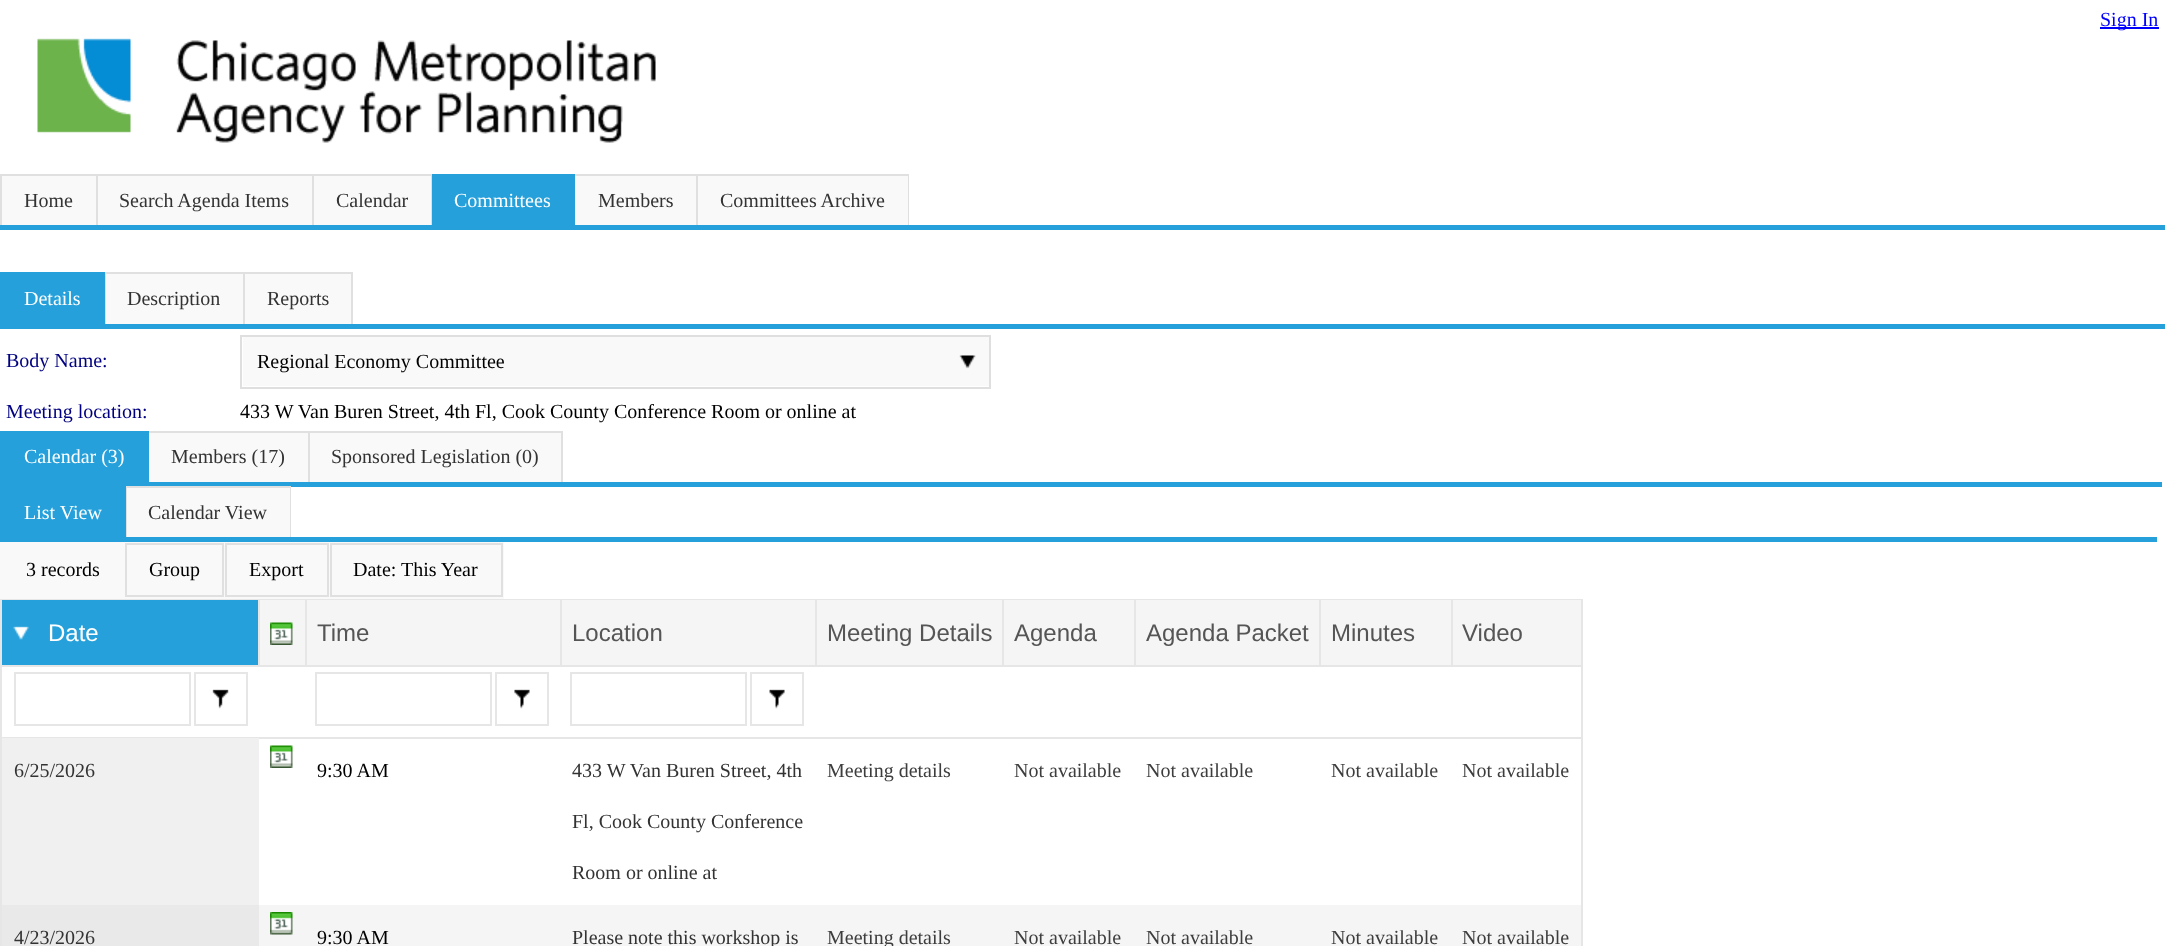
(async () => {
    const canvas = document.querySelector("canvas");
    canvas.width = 2165;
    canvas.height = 946;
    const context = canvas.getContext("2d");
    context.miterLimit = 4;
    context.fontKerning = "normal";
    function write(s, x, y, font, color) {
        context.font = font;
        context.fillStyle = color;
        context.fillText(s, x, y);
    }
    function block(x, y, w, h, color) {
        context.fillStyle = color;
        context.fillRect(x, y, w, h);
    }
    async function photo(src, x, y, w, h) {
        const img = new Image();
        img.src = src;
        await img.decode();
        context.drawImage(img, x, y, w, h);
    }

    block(0, 0, 2165, 946, "rgb(255, 255, 255)");
    block(2100, 27, 59, 2, "rgb(0, 0, 255)");
    write("Sign In", 2100, 26, "20px Liberation Serif", "rgb(0, 0, 255)");
    await photo("media/1.png", 37, 38, 619, 105);
    block(0, 225, 2165, 5, "rgb(37, 160, 218)");
    block(2, 176, 94, 49, "rgb(249, 249, 249)");
    block(0, 174, 432, 2, "rgb(224, 224, 224)");
    block(96, 174, 2, 51, "rgb(224, 224, 224)");
    block(0, 174, 2, 51, "rgb(224, 224, 224)");
    write("Home", 24, 207, "20px Liberation Serif", "rgb(51, 51, 51)");
    block(98, 176, 214, 49, "rgb(249, 249, 249)");
    block(312, 174, 2, 51, "rgb(224, 224, 224)");
    write("Search Agenda Items", 119, 207, "20px Liberation Serif", "rgb(51, 51, 51)");
    block(314, 176, 117, 49, "rgb(249, 249, 249)");
    block(431, 174, 1, 51, "rgb(224, 224, 224)");
    write("Calendar", 336, 207, "20px Liberation Serif", "rgb(51, 51, 51)");
    block(432, 174, 143, 51, "rgb(37, 160, 218)");
    write("Committees", 454, 207, "20px Liberation Serif", "rgb(255, 255, 255)");
    block(575, 176, 121, 49, "rgb(249, 249, 249)");
    block(575, 174, 334, 2, "rgb(224, 224, 224)");
    block(696, 174, 2, 51, "rgb(224, 224, 224)");
    write("Members", 598, 207, "20px Liberation Serif", "rgb(51, 51, 51)");
    block(698, 176, 210, 49, "rgb(249, 249, 249)");
    block(908, 174, 1, 51, "rgb(224, 224, 224)");
    write("Committees Archive", 720, 207, "20px Liberation Serif", "rgb(51, 51, 51)");
    block(0, 324, 2165, 5, "rgb(37, 160, 218)");
    block(0, 272, 105, 52, "rgb(37, 160, 218)");
    write("Details", 24, 305, "20px Liberation Serif", "rgb(255, 255, 255)");
    block(106, 274, 137, 50, "rgb(249, 249, 249)");
    block(105, 272, 248, 2, "rgb(224, 224, 224)");
    block(243, 272, 2, 52, "rgb(224, 224, 224)");
    block(105, 272, 1, 52, "rgb(224, 224, 224)");
    write("Description", 127, 305, "20px Liberation Serif", "rgb(51, 51, 51)");
    block(245, 274, 106, 50, "rgb(249, 249, 249)");
    block(351, 272, 2, 52, "rgb(224, 224, 224)");
    write("Reports", 267, 305, "20px Liberation Serif", "rgb(51, 51, 51)");
    write("Body Name:", 6, 367, "20px Liberation Serif", "rgb(0, 0, 128)");
    block(240, 335, 750, 2, "rgb(224, 223, 223)");
    block(989, 335, 2, 54, "rgb(224, 223, 223)");
    block(240, 387, 750, 2, "rgb(224, 223, 223)");
    block(243, 337, 746, 49, "rgb(249, 249, 249)");
    await photo("media/2.png", 959, 355, 17, 14);
    block(240, 335, 2, 54, "rgb(224, 223, 223)");
    write("Regional Economy Committee", 257, 368, "20px Liberation Serif", "rgb(0, 0, 0)");
    write("Meeting location:", 6, 418, "20px Liberation Serif", "rgb(0, 0, 128)");
    write("433 W Van Buren Street, 4th Fl, Cook County Conference Room or online at", 240, 418, "20px Liberation Serif", "rgb(0, 0, 0)");
    block(0, 482, 2162, 5, "rgb(37, 160, 218)");
    block(0, 431, 149, 51, "rgb(37, 160, 218)");
    write("Calendar (3)", 24, 463, "20px Liberation Serif", "rgb(255, 255, 255)");
    block(149, 433, 159, 49, "rgb(249, 249, 249)");
    block(149, 431, 414, 2, "rgb(224, 224, 224)");
    block(308, 431, 2, 51, "rgb(224, 224, 224)");
    write("Members (17)", 171, 463, "20px Liberation Serif", "rgb(51, 51, 51)");
    block(310, 433, 251, 49, "rgb(249, 249, 249)");
    block(561, 431, 2, 51, "rgb(224, 224, 224)");
    write("Sponsored Legislation (0)", 331, 463, "20px Liberation Serif", "rgb(51, 51, 51)");
    block(0, 537, 2157, 5, "rgb(37, 160, 218)");
    block(0, 487, 126, 50, "rgb(37, 160, 218)");
    write("List View", 24, 519, "20px Liberation Serif", "rgb(255, 255, 255)");
    block(127, 488, 163, 49, "rgb(249, 249, 249)");
    block(126, 486, 165, 2, "rgb(224, 224, 224)");
    block(290, 486, 1, 51, "rgb(224, 224, 224)");
    block(126, 486, 1, 51, "rgb(224, 224, 224)");
    write("Calendar View", 148, 519, "20px Liberation Serif", "rgb(51, 51, 51)");
    block(0, 542, 504, 57, "rgb(249, 249, 249)");
    write("3 records", 26, 576, "20px Liberation Serif", "rgb(0, 0, 0)");
    context.strokeStyle = "rgb(224, 224, 224)";
    context.lineWidth = 2;
    context.strokeRect(126, 544, 97, 52);
    write("Group", 149, 576, "20px Liberation Serif", "rgb(0, 0, 0)");
    context.strokeRect(226, 544, 102, 52);
    write("Export", 249, 576, "20px Liberation Serif", "rgb(0, 0, 0)");
    context.strokeRect(331, 544, 171, 52);
    write("Date: This Year", 353, 576, "20px Liberation Serif", "rgb(0, 0, 0)");
    context.strokeStyle = "rgb(230, 230, 230)";
    context.strokeRect(1, 600, 1581, 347);
    block(2, 600, 256, 65, "rgb(37, 160, 218)");
    block(2, 665, 1579, 2, "rgb(230, 230, 230)");
    await photo("media/3.png", 13, 626, 16, 14);
    write("Date", 48, 641, "24px Liberation Sans", "rgb(255, 255, 255)");
    block(260, 600, 45, 65, "rgb(245, 245, 245)");
    block(258, 600, 2, 66, "rgb(230, 230, 230)");
    await photo("media/4.png", 270, 622, 23, 23);
    block(307, 600, 253, 65, "rgb(245, 245, 245)");
    block(305, 600, 2, 66, "rgb(230, 230, 230)");
    write("Time", 317, 641, "24px Liberation Sans", "rgb(85, 85, 85)");
    block(562, 600, 253, 65, "rgb(245, 245, 245)");
    block(560, 600, 2, 66, "rgb(230, 230, 230)");
    write("Location", 572, 641, "24px Liberation Sans", "rgb(85, 85, 85)");
    block(817, 600, 185, 65, "rgb(245, 245, 245)");
    block(815, 600, 2, 66, "rgb(230, 230, 230)");
    write("Meeting Details", 827, 641, "24px Liberation Sans", "rgb(85, 85, 85)");
    block(1004, 600, 130, 65, "rgb(245, 245, 245)");
    block(1002, 600, 2, 66, "rgb(230, 230, 230)");
    write("Agenda", 1014, 641, "24px Liberation Sans", "rgb(85, 85, 85)");
    block(1136, 600, 183, 65, "rgb(245, 245, 245)");
    block(1134, 600, 2, 66, "rgb(230, 230, 230)");
    write("Agenda Packet", 1146, 641, "24px Liberation Sans", "rgb(85, 85, 85)");
    block(1321, 600, 130, 65, "rgb(245, 245, 245)");
    block(1319, 600, 2, 66, "rgb(230, 230, 230)");
    write("Minutes", 1331, 641, "24px Liberation Sans", "rgb(85, 85, 85)");
    block(1453, 600, 128, 65, "rgb(245, 245, 245)");
    block(1451, 600, 2, 66, "rgb(230, 230, 230)");
    write("Video", 1462, 641, "24px Liberation Sans", "rgb(85, 85, 85)");
    block(2, 737, 256, 1, "rgb(230, 230, 230)");
    context.strokeRect(15, 673, 175, 52);
    await photo("media/5.png", 212, 689, 17, 20);
    context.strokeRect(195, 673, 52, 52);
    context.strokeRect(316, 673, 175, 52);
    await photo("media/6.png", 514, 689, 16, 20);
    context.strokeRect(496, 673, 52, 52);
    context.strokeRect(571, 673, 175, 52);
    await photo("media/7.png", 769, 689, 16, 20);
    context.strokeRect(751, 673, 52, 52);
    block(258, 737, 1323, 2, "rgb(230, 230, 230)");
    await photo("media/8.png", 270, 745, 23, 23);
    block(2, 740, 255, 163, "rgb(240, 240, 240)");
    block(2, 738, 256, 2, "rgb(240, 240, 240)");
    block(257, 738, 2, 167, "rgb(240, 240, 240)");
    block(2, 903, 256, 2, "rgb(240, 240, 240)");
    write("6/25/2026", 14, 777, "20px Liberation Serif", "rgb(51, 51, 51)");
    write("9:30 AM", 317, 777, "20px Liberation Serif", "rgb(0, 0, 0)");
    write("433 W Van Buren Street, 4th", 572, 777, "20px Liberation Serif", "rgb(51, 51, 51)");
    write("Fl, Cook County Conference", 572, 828, "20px Liberation Serif", "rgb(51, 51, 51)");
    write("Room or online at", 572, 879, "20px Liberation Serif", "rgb(51, 51, 51)");
    write("Meeting details", 827, 777, "20px Liberation Serif", "rgb(61, 61, 61)");
    write("Not available", 1014, 777, "20px Liberation Serif", "rgb(61, 61, 61)");
    write("Not available", 1146, 777, "20px Liberation Serif", "rgb(61, 61, 61)");
    write("Not available", 1331, 777, "20px Liberation Serif", "rgb(61, 61, 61)");
    write("Not available", 1462, 777, "20px Liberation Serif", "rgb(61, 61, 61)");
    block(259, 905, 1322, 41, "rgb(245, 245, 245)");
    await photo("media/9.png", 270, 912, 23, 23);
    block(2, 907, 255, 39, "rgb(233, 233, 233)");
    block(2, 905, 256, 2, "rgb(233, 233, 233)");
    block(257, 905, 2, 41, "rgb(233, 233, 233)");
    write("4/23/2026", 14, 944, "20px Liberation Serif", "rgb(51, 51, 51)");
    write("9:30 AM", 317, 944, "20px Liberation Serif", "rgb(0, 0, 0)");
    write("Please note this workshop is", 572, 944, "20px Liberation Serif", "rgb(51, 51, 51)");
    write("Meeting details", 827, 944, "20px Liberation Serif", "rgb(61, 61, 61)");
    write("Not available", 1014, 944, "20px Liberation Serif", "rgb(61, 61, 61)");
    write("Not available", 1146, 944, "20px Liberation Serif", "rgb(61, 61, 61)");
    write("Not available", 1331, 944, "20px Liberation Serif", "rgb(61, 61, 61)");
    write("Not available", 1462, 944, "20px Liberation Serif", "rgb(61, 61, 61)");
})();
